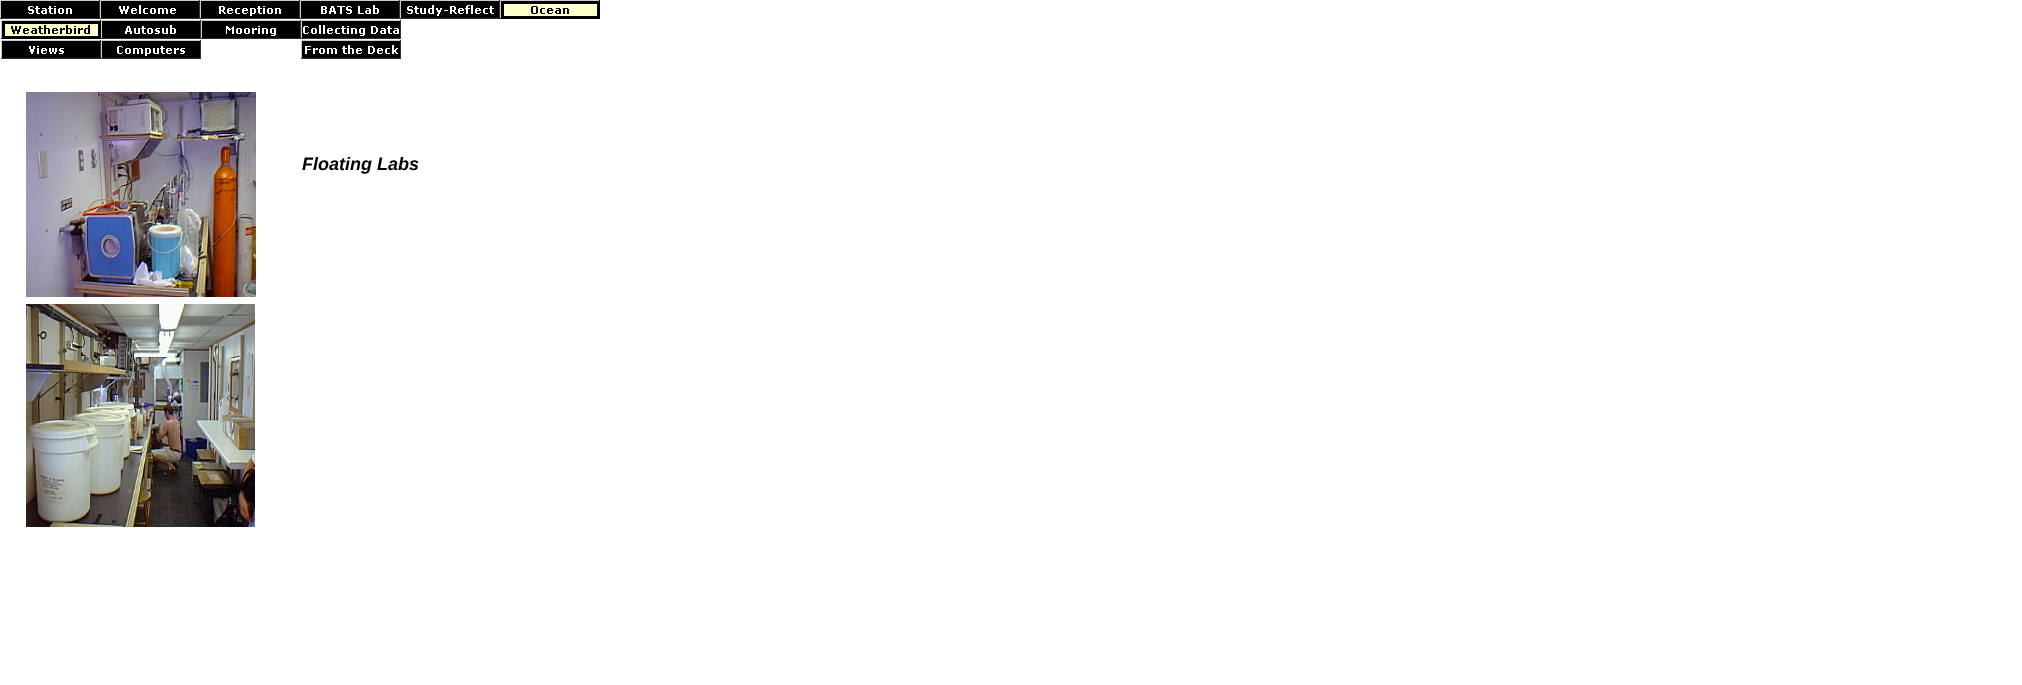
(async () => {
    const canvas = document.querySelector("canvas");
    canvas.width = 2022;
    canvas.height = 685;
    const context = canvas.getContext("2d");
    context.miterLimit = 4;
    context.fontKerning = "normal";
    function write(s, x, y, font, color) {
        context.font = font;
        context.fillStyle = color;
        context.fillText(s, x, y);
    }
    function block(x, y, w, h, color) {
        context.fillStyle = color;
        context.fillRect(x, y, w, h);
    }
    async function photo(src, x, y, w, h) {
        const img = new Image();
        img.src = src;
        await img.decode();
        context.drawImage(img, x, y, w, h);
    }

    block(0, 0, 2022, 685, "rgb(255, 255, 255)");
    await photo("media/1.png", 0, 0, 100, 19);
    await photo("media/2.png", 100, 0, 100, 19);
    await photo("media/3.png", 200, 0, 100, 19);
    await photo("media/4.png", 300, 0, 100, 19);
    await photo("media/5.png", 400, 0, 100, 19);
    await photo("media/6.png", 500, 0, 100, 19);
    await photo("media/7.png", 1, 20, 100, 19);
    await photo("media/8.png", 101, 20, 100, 19);
    await photo("media/9.png", 201, 20, 100, 19);
    await photo("media/10.png", 301, 20, 100, 19);
    await photo("media/11.png", 1, 40, 100, 19);
    await photo("media/12.png", 101, 40, 100, 19);
    await photo("media/13.png", 301, 40, 100, 19);
    await photo("media/14.png", 26, 92, 230, 205);
    await photo("media/15.png", 26, 304, 229, 223);
    write("Floating Labs", 302, 170, "italic bold 18px Liberation Sans", "rgb(0, 0, 0)");
})();
